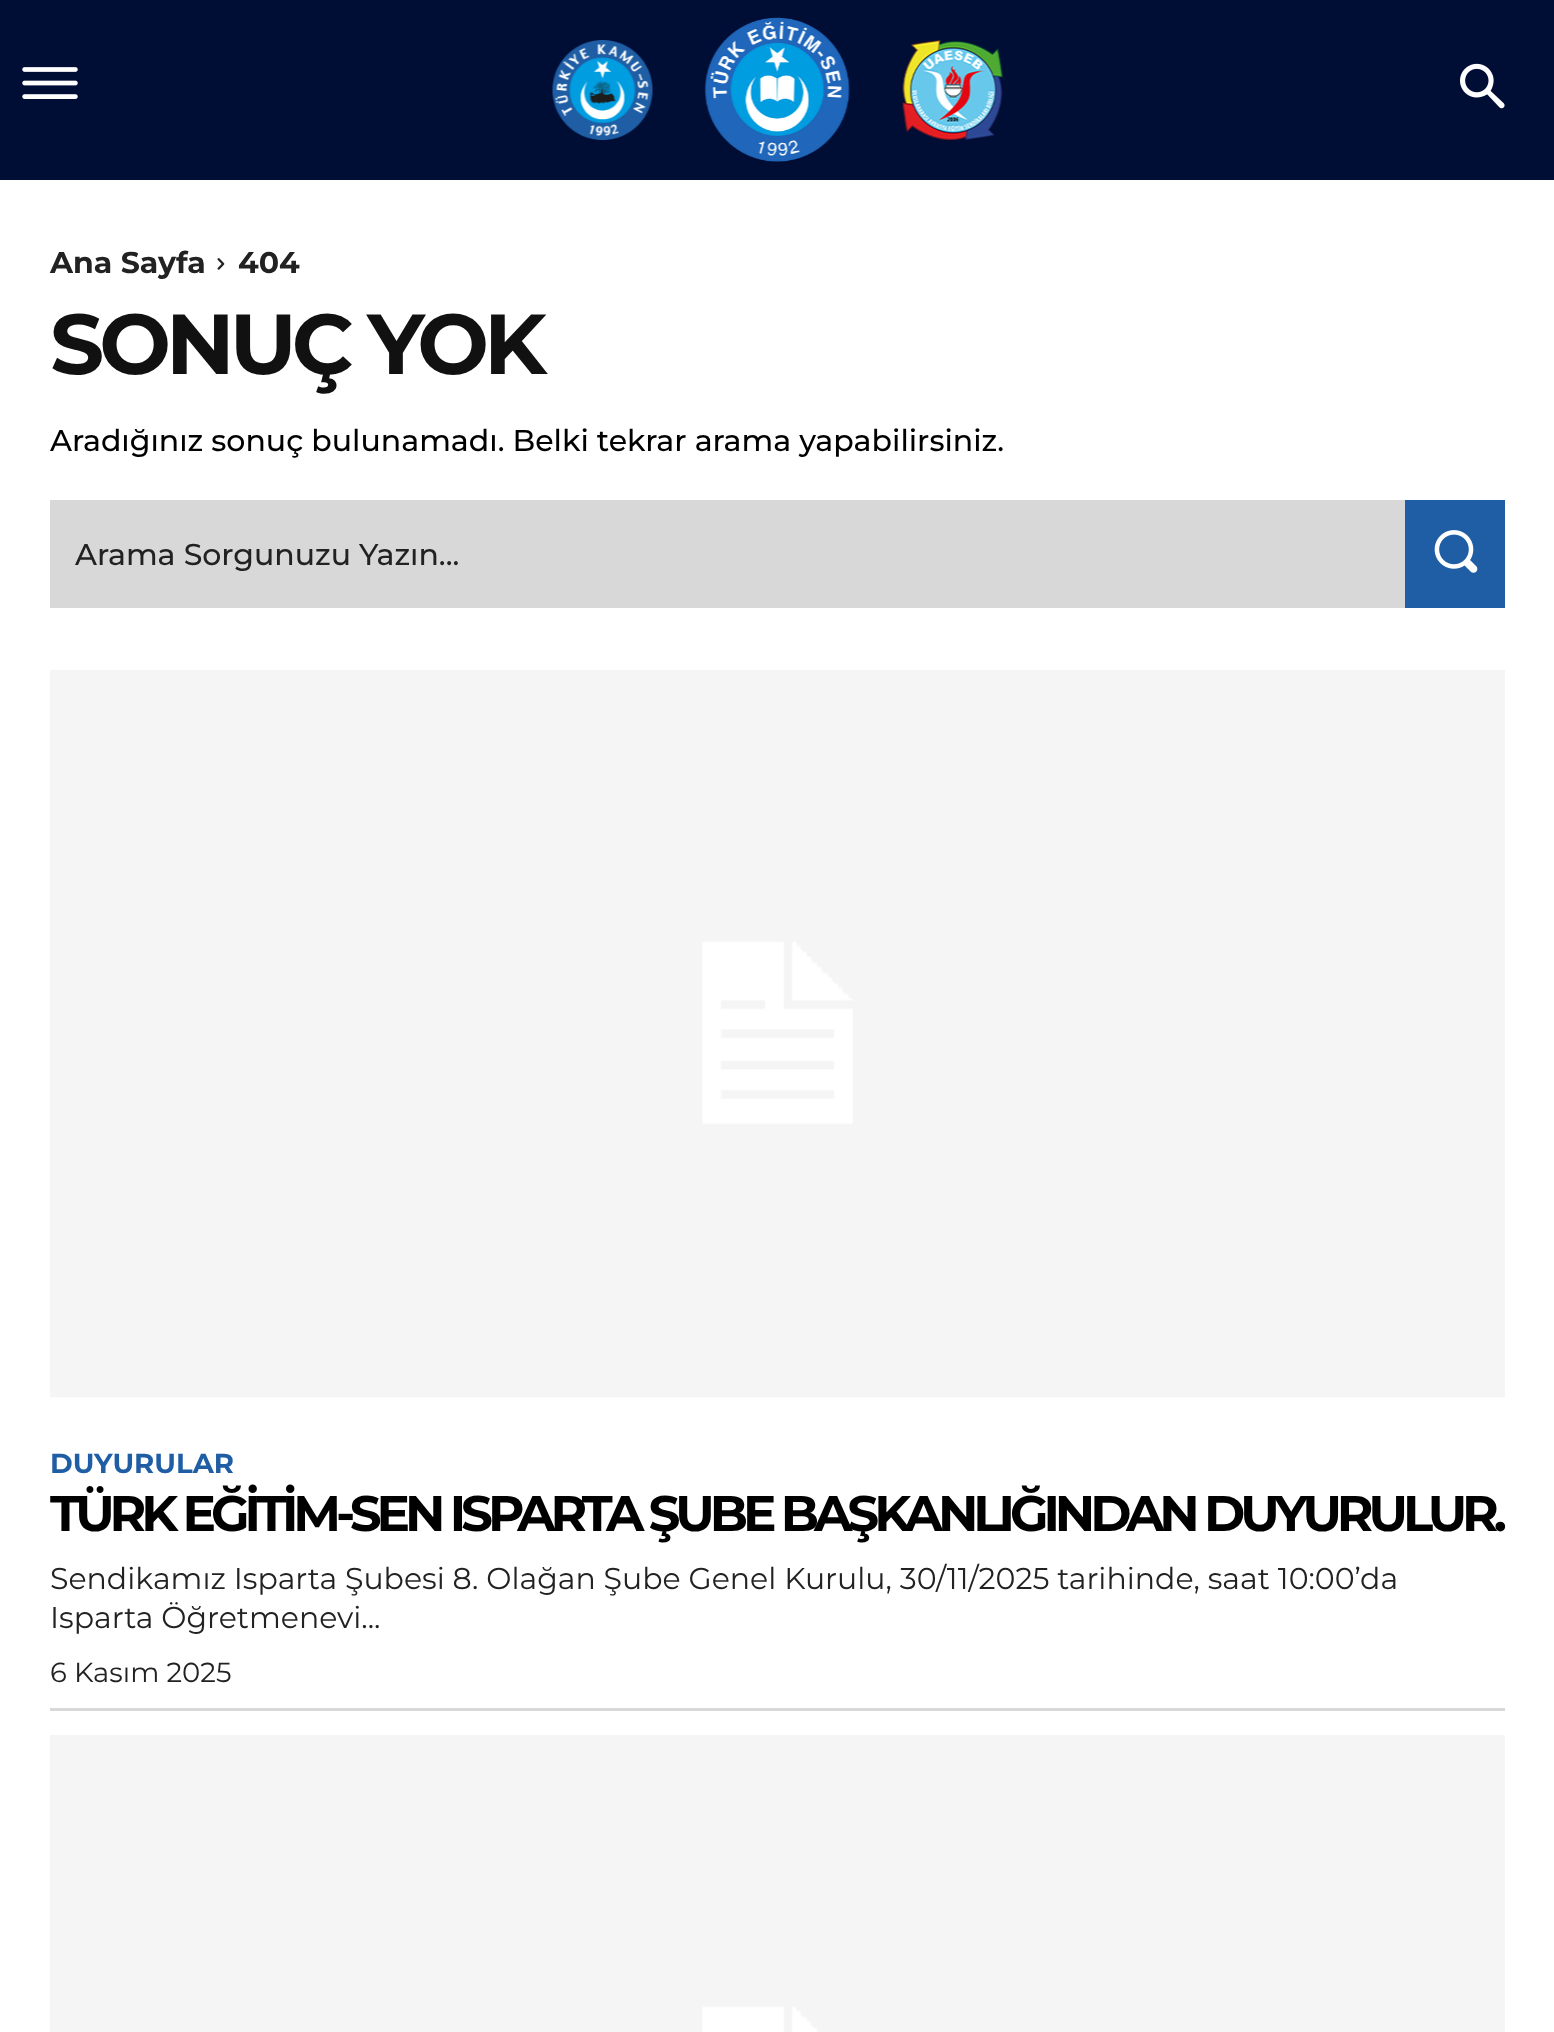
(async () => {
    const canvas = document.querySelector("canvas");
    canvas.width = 1554;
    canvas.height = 2032;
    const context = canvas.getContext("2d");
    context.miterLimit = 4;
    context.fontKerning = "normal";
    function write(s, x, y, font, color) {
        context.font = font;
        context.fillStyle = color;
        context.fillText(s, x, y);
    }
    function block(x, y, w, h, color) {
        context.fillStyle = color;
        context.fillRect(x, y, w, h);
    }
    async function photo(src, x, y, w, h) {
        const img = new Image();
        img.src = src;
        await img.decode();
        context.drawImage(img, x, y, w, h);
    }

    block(0, 0, 1554, 2032, "rgb(255, 255, 255)");
    block(0, 0, 1554, 180, "rgb(0, 13, 53)");
    await photo("media/1.png", 22, 67, 56, 32);
    await photo("media/2.png", 552, 40, 101, 100);
    await photo("media/3.png", 704, 17, 146, 145);
    await photo("media/4.png", 902, 40, 101, 100);
    await photo("media/5.png", 1460, 63, 45, 46);
    write("Ana Sayfa", 50, 273, "bold 30px Montserrat", "rgb(34, 34, 34)");
    await photo("media/6.png", 217, 258, 8, 12);
    write("404", 238, 273, "bold 30px Montserrat", "rgb(34, 34, 34)");
    context.letterSpacing = "-5px";
    write("SONUÇ YOK", 50, 374, "bold 85px Montserrat", "rgb(17, 17, 17)");
    context.letterSpacing = "0px";
    write("Aradığınız sonuç bulunamadı. Belki tekrar arama yapabilirsiniz.", 50, 451, "500 30px Montserrat", "rgb(0, 0, 0)");
    block(50, 500, 1355, 108, "rgb(216, 216, 216)");
    write("Arama Sorgunuzu Yazın...", 75, 565, "500 30px Montserrat", "rgb(34, 34, 34)");
    block(1405, 500, 100, 108, "rgb(31, 94, 164)");
    await photo("media/7.png", 1434, 530, 44, 43);
    await photo("media/8.png", 50, 670, 1455, 728);
    write("DUYURULAR", 50, 1473, "bold 27.5px Montserrat", "rgb(31, 94, 164)");
    context.letterSpacing = "-5px";
    write("TÜRK EĞİTİM-SEN ISPARTA ŞUBE BAŞKANLIĞINDAN DUYURULUR.", 50, 1531, "bold 50px Montserrat", "rgb(0, 0, 0)");
    context.letterSpacing = "0px";
    write("Sendikamız Isparta Şubesi 8. Olağan Şube Genel Kurulu, 30/11/2025 tarihinde, saat 10:00’da", 50, 1589, "30px Montserrat", "rgb(34, 34, 34)");
    write("Isparta Öğretmenevi...", 50, 1628, "30px Montserrat", "rgb(34, 34, 34)");
    write("6 Kasım 2025", 50, 1682, "27.5px Montserrat", "rgb(34, 34, 34)");
    block(50, 1708, 1455, 3, "rgb(216, 216, 216)");
    await photo("media/9.png", 50, 1735, 1455, 297);
})();
